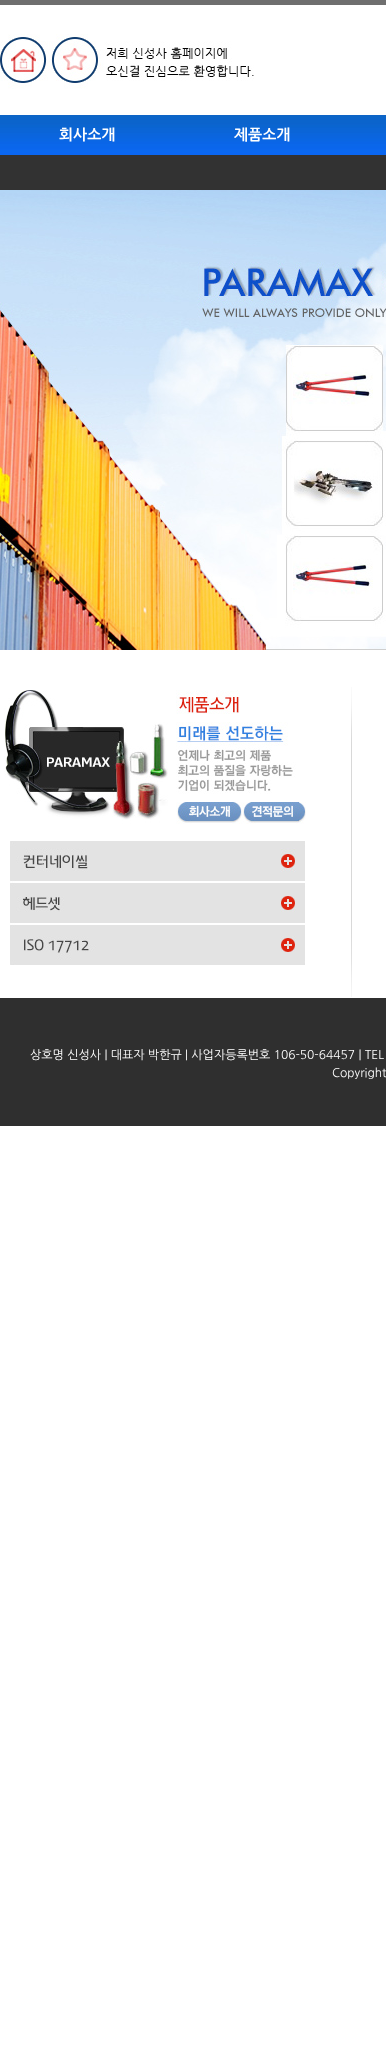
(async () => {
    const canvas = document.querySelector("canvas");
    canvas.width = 386;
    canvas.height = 2067;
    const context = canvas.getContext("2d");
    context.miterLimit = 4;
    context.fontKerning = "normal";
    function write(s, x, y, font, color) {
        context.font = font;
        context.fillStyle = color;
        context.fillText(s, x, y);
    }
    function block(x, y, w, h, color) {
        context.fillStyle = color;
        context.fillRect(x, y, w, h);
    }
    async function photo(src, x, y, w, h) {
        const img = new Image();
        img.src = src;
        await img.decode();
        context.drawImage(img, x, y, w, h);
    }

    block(0, 0, 386, 2067, "rgb(255, 255, 255)");
    await photo("media/1.png", 0, 0, 386, 190);
    await photo("media/2.png", 0, 34, 254, 55);
    write("회사소개", 59, 140, "bold 15px NanumGothic", "rgb(255, 255, 255)");
    write("제품소개", 234, 140, "bold 15px NanumGothic", "rgb(255, 255, 255)");
    await photo("media/3.png", 0, 190, 386, 460);
    await photo("media/4.png", 351, 687, 1, 310);
    await photo("media/5.png", 4, 690, 302, 134);
    await photo("media/6.png", 10, 841, 295, 124);
    block(0, 998, 386, 128, "rgb(47, 47, 47)");
    write("상호명 신성사 | 대표자 박한규 | 사업자등록번호 106-50-64457 | TEL", 30, 1059, "12px NanumGothic", "rgb(255, 255, 255)");
    write("Copyright", 332, 1077, "12px NanumGothic", "rgb(255, 255, 255)");
})();
